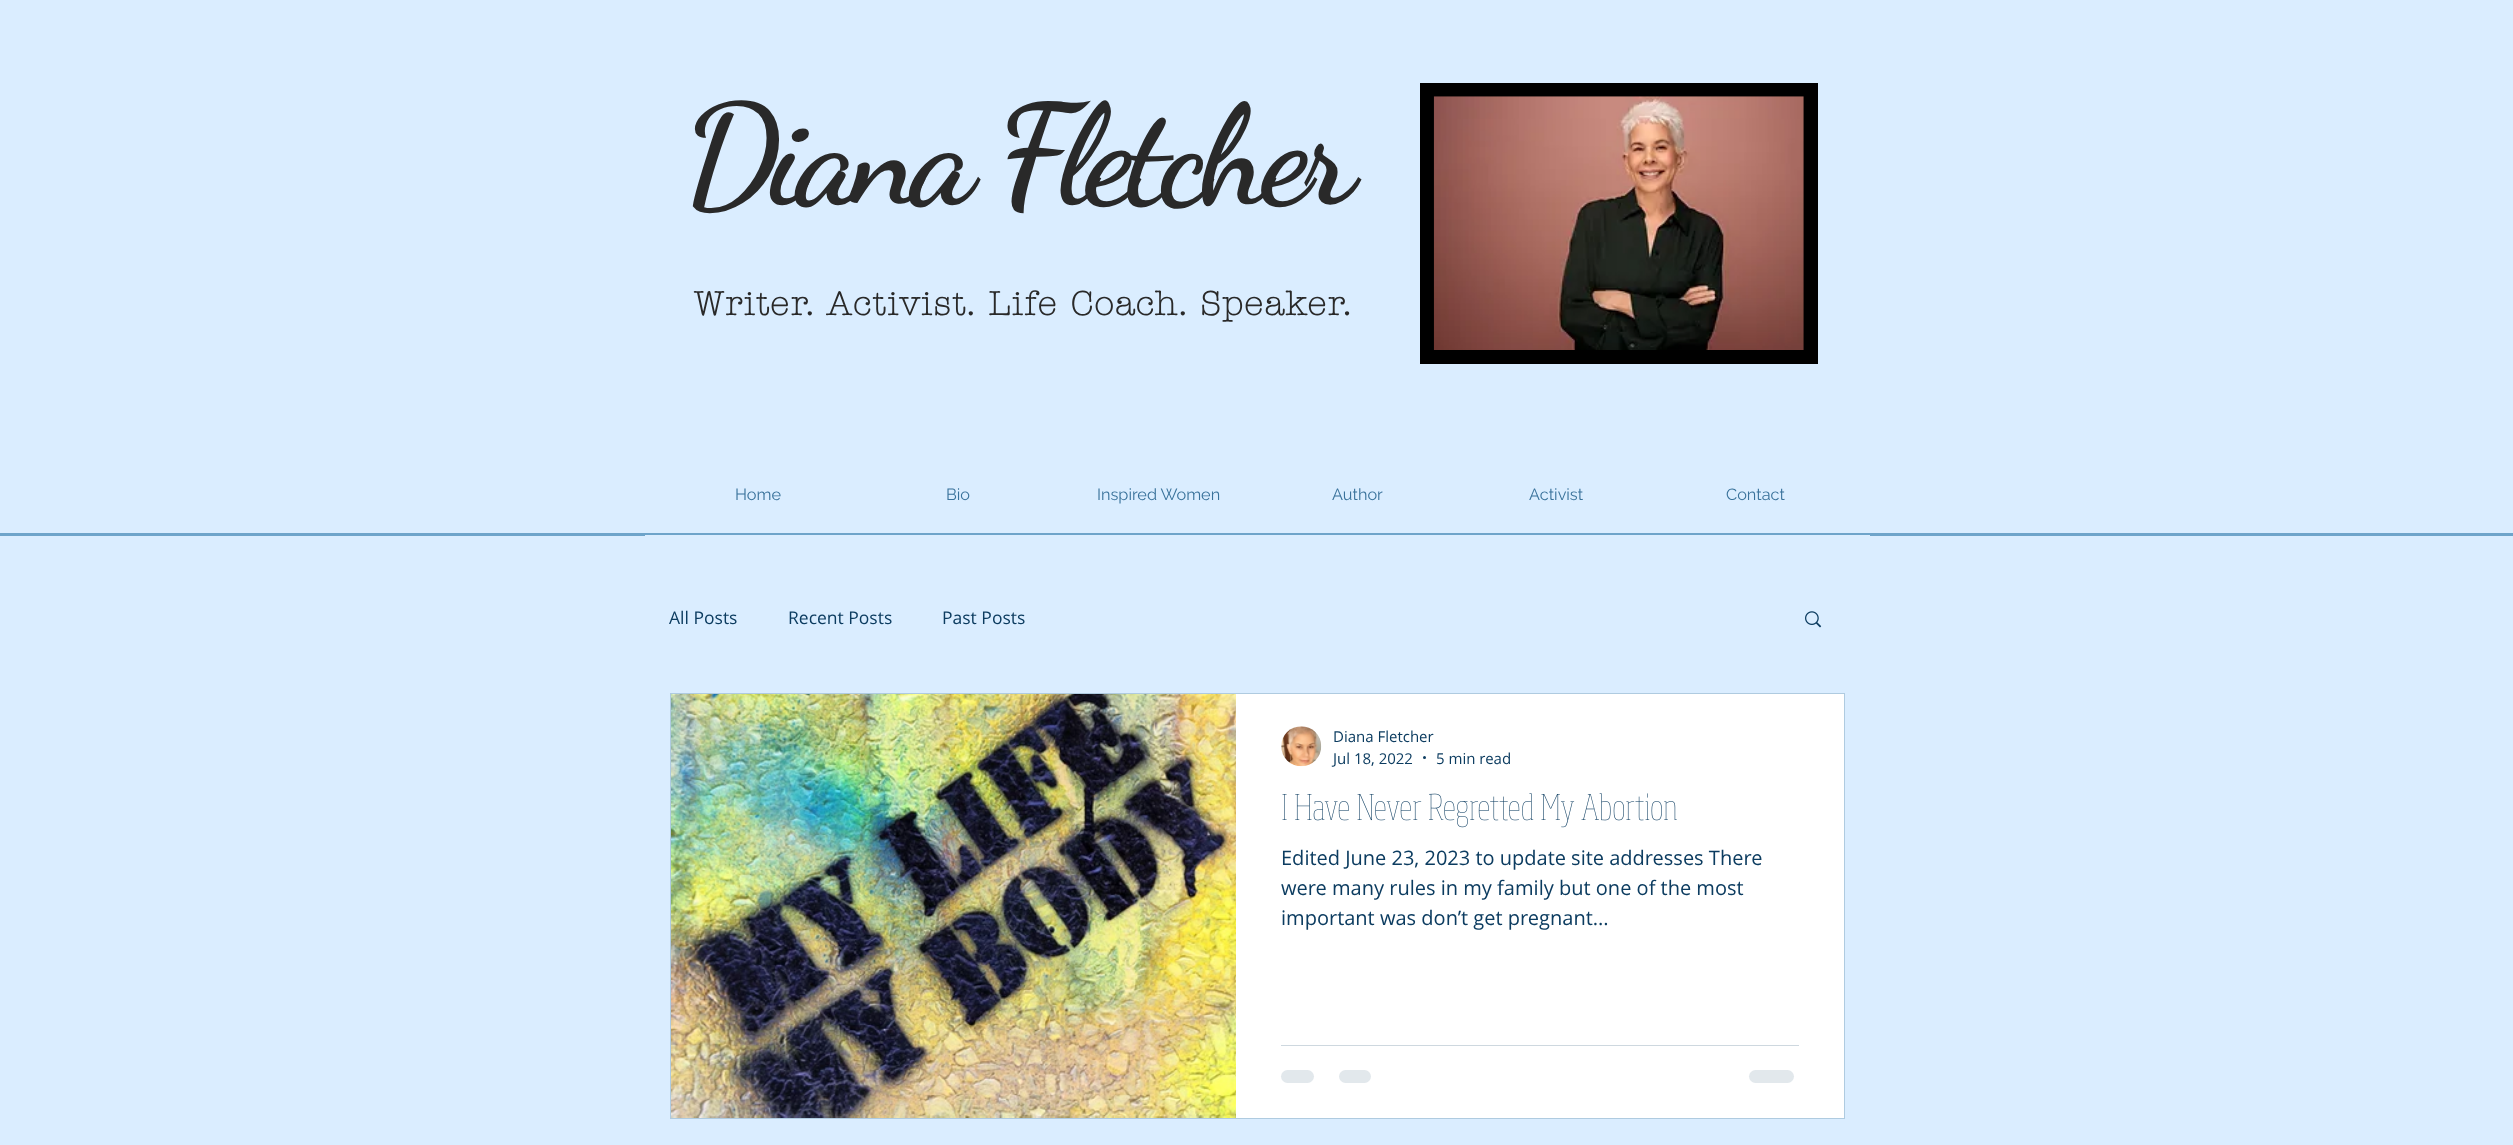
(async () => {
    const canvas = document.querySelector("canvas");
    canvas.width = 2513;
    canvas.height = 1145;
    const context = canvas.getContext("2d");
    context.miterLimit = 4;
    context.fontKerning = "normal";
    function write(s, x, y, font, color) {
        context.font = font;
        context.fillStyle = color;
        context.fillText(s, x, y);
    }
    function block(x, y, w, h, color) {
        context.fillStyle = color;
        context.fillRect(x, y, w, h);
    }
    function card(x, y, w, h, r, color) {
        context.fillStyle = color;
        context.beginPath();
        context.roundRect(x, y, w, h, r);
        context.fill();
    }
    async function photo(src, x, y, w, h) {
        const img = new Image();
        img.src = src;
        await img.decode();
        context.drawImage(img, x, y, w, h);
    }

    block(0, 0, 2513, 1145, "rgb(218, 237, 255)");
    context.letterSpacing = "-7px";
    write("Diana Fletcher", 683, 201, "bold 140px Dancing Script", "rgb(41, 41, 41)");
    block(1420, 83, 398, 281, "rgb(0, 0, 0)");
    await photo("media/1.png", 1433, 96, 371, 254);
    context.letterSpacing = "1.7px";
    write("Writer. Activist. Life Coach. Speaker.", 694, 315, "bold 33.75px 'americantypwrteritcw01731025'", "rgb(41, 41, 41)");
    context.letterSpacing = "0px";
    write("Home", 735, 500, "16.25px Raleway", "rgb(57, 114, 155)");
    write("Bio", 946, 500, "16.25px Raleway", "rgb(57, 114, 155)");
    write("Inspired Women", 1097, 500, "16.25px Raleway", "rgb(57, 114, 155)");
    write("Author", 1332, 500, "16.25px Raleway", "rgb(57, 114, 155)");
    write("Activist", 1529, 500, "16.25px Raleway", "rgb(57, 114, 155)");
    write("Contact", 1726, 500, "16.25px Raleway", "rgb(57, 114, 155)");
    block(0, 533, 2513, 3, "rgb(110, 164, 202)");
    block(645, 535, 1225, 1, "rgb(218, 237, 255)");
    write("All Posts", 669, 624, "17.5px Open Sans", "rgb(12, 60, 96)");
    write("Recent Posts", 788, 624, "17.5px Open Sans", "rgb(12, 60, 96)");
    write("Past Posts", 942, 624, "17.5px Open Sans", "rgb(12, 60, 96)");
    await photo("media/2.png", 1805, 611, 17, 17);
    context.strokeStyle = "rgb(175, 203, 224)";
    context.strokeRect(670.5, 693.5, 1174, 425);
    await photo("media/3.png", 671, 694, 565, 424);
    block(1236, 694, 608, 424, "rgb(255, 255, 255)");
    await photo("media/4.png", 1281, 726, 41, 41);
    write("Diana Fletcher", 1333, 742, "15px Open Sans", "rgb(12, 60, 96)");
    write("Jul 18, 2022", 1333, 764, "15px Open Sans", "rgb(12, 60, 96)");
    context.beginPath();
    context.arc(1424.5, 757.5, 1.5, 0, Math.PI * 2);
    context.fill();
    write("5 min read", 1436, 764, "15px Open Sans", "rgb(12, 60, 96)");
    await photo("media/5.png", 1282, 793, 395, 35);
    write("Edited June 23, 2023 to update site addresses There", 1281, 865, "20px Open Sans", "rgb(12, 60, 96)");
    write("were many rules in my family but one of the most", 1281, 895, "20px Open Sans", "rgb(12, 60, 96)");
    write("important was don’t get pregnant...", 1281, 925, "20px Open Sans", "rgb(12, 60, 96)");
    block(1281, 1045, 518, 1, "rgb(206, 216, 223)");
    card(1281, 1070, 33, 13, 6.5, "rgb(226, 232, 236)");
    card(1339, 1070, 32, 13, 6.5, "rgb(226, 232, 236)");
    card(1749, 1070, 45, 13, 6.5, "rgb(226, 232, 236)");
})();
